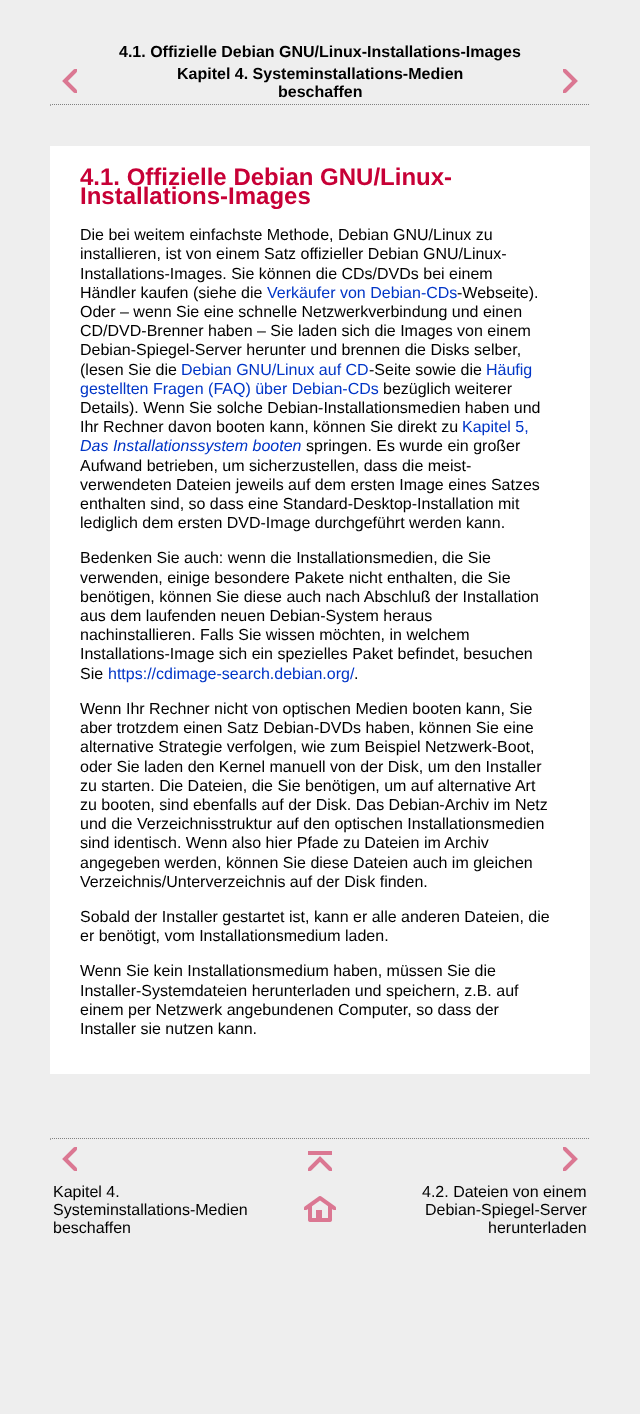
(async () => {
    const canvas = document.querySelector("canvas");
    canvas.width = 640;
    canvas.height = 1414;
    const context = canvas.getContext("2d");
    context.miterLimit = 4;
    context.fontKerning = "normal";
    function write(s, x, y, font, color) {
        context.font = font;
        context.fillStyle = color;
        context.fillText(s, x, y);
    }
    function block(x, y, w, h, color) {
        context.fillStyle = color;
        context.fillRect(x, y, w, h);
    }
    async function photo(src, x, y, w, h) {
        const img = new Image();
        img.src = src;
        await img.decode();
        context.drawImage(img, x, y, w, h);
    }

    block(0, 0, 640, 1414, "rgb(238, 238, 238)");
    write("4.1. Offizielle Debian GNU/Linux-Installations-Images", 119, 57, "bold 16px Liberation Sans", "rgb(0, 0, 0)");
    await photo("media/1.png", 62, 69, 15, 24);
    write("Kapitel 4. Systeminstallations-Medien", 177, 79, "bold 16px Liberation Sans", "rgb(0, 0, 0)");
    write("beschaffen", 278, 97, "bold 16px Liberation Sans", "rgb(0, 0, 0)");
    await photo("media/2.png", 563, 69, 15, 24);
    context.beginPath();
    context.moveTo(50, 104.5);
    context.lineTo(590, 104.5);
    context.strokeStyle = "rgb(128, 128, 128)";
    context.setLineDash([1, 1]);
    context.stroke();
    block(50, 104, 1, 2, "rgb(159, 159, 159)");
    block(50, 146, 540, 928, "rgb(255, 255, 255)");
    write("4.1. Offizielle Debian GNU/Linux-", 80, 185, "bold 24px Liberation Sans", "rgb(199, 0, 54)");
    write("Installations-Images", 80, 204, "bold 24px Liberation Sans", "rgb(199, 0, 54)");
    write("Die bei weitem einfachste Methode, Debian GNU/Linux zu", 80, 240, "16px Liberation Sans", "rgb(0, 0, 0)");
    write("installieren, ist von einem Satz offizieller Debian GNU/Linux-", 80, 259, "16px Liberation Sans", "rgb(0, 0, 0)");
    write("Installations-Images. Sie können die CDs/DVDs bei einem", 80, 279, "16px Liberation Sans", "rgb(0, 0, 0)");
    write("Händler kaufen (siehe die", 80, 298, "16px Liberation Sans", "rgb(0, 0, 0)");
    write("Verkäufer von Debian-CDs", 267, 298, "16px Liberation Sans", "rgb(0, 53, 199)");
    write("-Webseite).", 457, 298, "16px Liberation Sans", "rgb(0, 0, 0)");
    write("Oder – wenn Sie eine schnelle Netzwerkverbindung und einen", 80, 317, "16px Liberation Sans", "rgb(0, 0, 0)");
    write("CD/DVD-Brenner haben – Sie laden sich die Images von einem", 80, 336, "16px Liberation Sans", "rgb(0, 0, 0)");
    write("Debian-Spiegel-Server herunter und brennen die Disks selber,", 80, 355, "16px Liberation Sans", "rgb(0, 0, 0)");
    write("(lesen Sie die", 80, 375, "16px Liberation Sans", "rgb(0, 0, 0)");
    write("Debian GNU/Linux auf CD", 181, 375, "16px Liberation Sans", "rgb(0, 53, 199)");
    write("-Seite sowie die", 369, 375, "16px Liberation Sans", "rgb(0, 0, 0)");
    write("Häufig", 486, 375, "16px Liberation Sans", "rgb(0, 53, 199)");
    write("gestellten Fragen (FAQ) über Debian-CDs", 80, 394, "16px Liberation Sans", "rgb(0, 53, 199)");
    write("bezüglich weiterer", 383, 394, "16px Liberation Sans", "rgb(0, 0, 0)");
    write("Details). Wenn Sie solche Debian-Installationsmedien haben und", 80, 413, "16px Liberation Sans", "rgb(0, 0, 0)");
    write("Ihr Rechner davon booten kann, können Sie direkt zu", 80, 432, "16px Liberation Sans", "rgb(0, 0, 0)");
    write("Kapitel 5,", 462, 432, "16px Liberation Sans", "rgb(0, 53, 199)");
    write("Das Installationssystem booten", 80, 451, "italic 16px Liberation Sans", "rgb(0, 53, 199)");
    write("springen. Es wurde ein großer", 306, 451, "16px Liberation Sans", "rgb(0, 0, 0)");
    write("Aufwand betrieben, um sicherzustellen, dass die meist-", 80, 471, "16px Liberation Sans", "rgb(0, 0, 0)");
    write("verwendeten Dateien jeweils auf dem ersten Image eines Satzes", 80, 490, "16px Liberation Sans", "rgb(0, 0, 0)");
    write("enthalten sind, so dass eine Standard-Desktop-Installation mit", 80, 509, "16px Liberation Sans", "rgb(0, 0, 0)");
    write("lediglich dem ersten DVD-Image durchgeführt werden kann.", 80, 528, "16px Liberation Sans", "rgb(0, 0, 0)");
    write("Bedenken Sie auch: wenn die Installationsmedien, die Sie", 80, 563, "16px Liberation Sans", "rgb(0, 0, 0)");
    write("verwenden, einige besondere Pakete nicht enthalten, die Sie", 80, 583, "16px Liberation Sans", "rgb(0, 0, 0)");
    write("benötigen, können Sie diese auch nach Abschluß der Installation", 80, 602, "16px Liberation Sans", "rgb(0, 0, 0)");
    write("aus dem laufenden neuen Debian-System heraus", 80, 621, "16px Liberation Sans", "rgb(0, 0, 0)");
    write("nachinstallieren. Falls Sie wissen möchten, in welchem", 80, 640, "16px Liberation Sans", "rgb(0, 0, 0)");
    write("Installations-Image sich ein spezielles Paket befindet, besuchen", 80, 659, "16px Liberation Sans", "rgb(0, 0, 0)");
    write("Sie", 80, 679, "16px Liberation Sans", "rgb(0, 0, 0)");
    write("https://cdimage-search.debian.org/", 108, 679, "16px Liberation Sans", "rgb(0, 53, 199)");
    write(".", 354, 679, "16px Liberation Sans", "rgb(0, 0, 0)");
    write("Wenn Ihr Rechner nicht von optischen Medien booten kann, Sie", 80, 714, "16px Liberation Sans", "rgb(0, 0, 0)");
    write("aber trotzdem einen Satz Debian-DVDs haben, können Sie eine", 80, 733, "16px Liberation Sans", "rgb(0, 0, 0)");
    write("alternative Strategie verfolgen, wie zum Beispiel Netzwerk-Boot,", 80, 752, "16px Liberation Sans", "rgb(0, 0, 0)");
    write("oder Sie laden den Kernel manuell von der Disk, um den Installer", 80, 772, "16px Liberation Sans", "rgb(0, 0, 0)");
    write("zu starten. Die Dateien, die Sie benötigen, um auf alternative Art", 80, 791, "16px Liberation Sans", "rgb(0, 0, 0)");
    write("zu booten, sind ebenfalls auf der Disk. Das Debian-Archiv im Netz", 80, 810, "16px Liberation Sans", "rgb(0, 0, 0)");
    write("und die Verzeichnisstruktur auf den optischen Installationsmedien", 80, 829, "16px Liberation Sans", "rgb(0, 0, 0)");
    write("sind identisch. Wenn also hier Pfade zu Dateien im Archiv", 80, 848, "16px Liberation Sans", "rgb(0, 0, 0)");
    write("angegeben werden, können Sie diese Dateien auch im gleichen", 80, 868, "16px Liberation Sans", "rgb(0, 0, 0)");
    write("Verzeichnis/Unterverzeichnis auf der Disk finden.", 80, 887, "16px Liberation Sans", "rgb(0, 0, 0)");
    write("Sobald der Installer gestartet ist, kann er alle anderen Dateien, die", 80, 922, "16px Liberation Sans", "rgb(0, 0, 0)");
    write("er benötigt, vom Installationsmedium laden.", 80, 941, "16px Liberation Sans", "rgb(0, 0, 0)");
    write("Wenn Sie kein Installationsmedium haben, müssen Sie die", 80, 976, "16px Liberation Sans", "rgb(0, 0, 0)");
    write("Installer-Systemdateien herunterladen und speichern, z.B. auf", 80, 996, "16px Liberation Sans", "rgb(0, 0, 0)");
    write("einem per Netzwerk angebundenen Computer, so dass der", 80, 1015, "16px Liberation Sans", "rgb(0, 0, 0)");
    write("Installer sie nutzen kann.", 80, 1034, "16px Liberation Sans", "rgb(0, 0, 0)");
    context.beginPath();
    context.moveTo(50, 1138.5);
    context.lineTo(590, 1138.5);
    context.stroke();
    block(50, 1138, 1, 2, "rgb(159, 159, 159)");
    await photo("media/1.png", 62, 1147, 15, 24);
    await photo("media/3.png", 308, 1151, 24, 20);
    await photo("media/2.png", 563, 1147, 15, 24);
    write("Kapitel 4.", 53, 1197, "16px Liberation Sans", "rgb(0, 0, 0)");
    write("Systeminstallations-Medien", 53, 1215, "16px Liberation Sans", "rgb(0, 0, 0)");
    write("beschaffen", 53, 1233, "16px Liberation Sans", "rgb(0, 0, 0)");
    await photo("media/4.png", 304, 1196, 32, 26);
    write("4.2. Dateien von einem", 422, 1197, "16px Liberation Sans", "rgb(0, 0, 0)");
    write("Debian-Spiegel-Server", 425, 1215, "16px Liberation Sans", "rgb(0, 0, 0)");
    write("herunterladen", 488, 1233, "16px Liberation Sans", "rgb(0, 0, 0)");
})();
